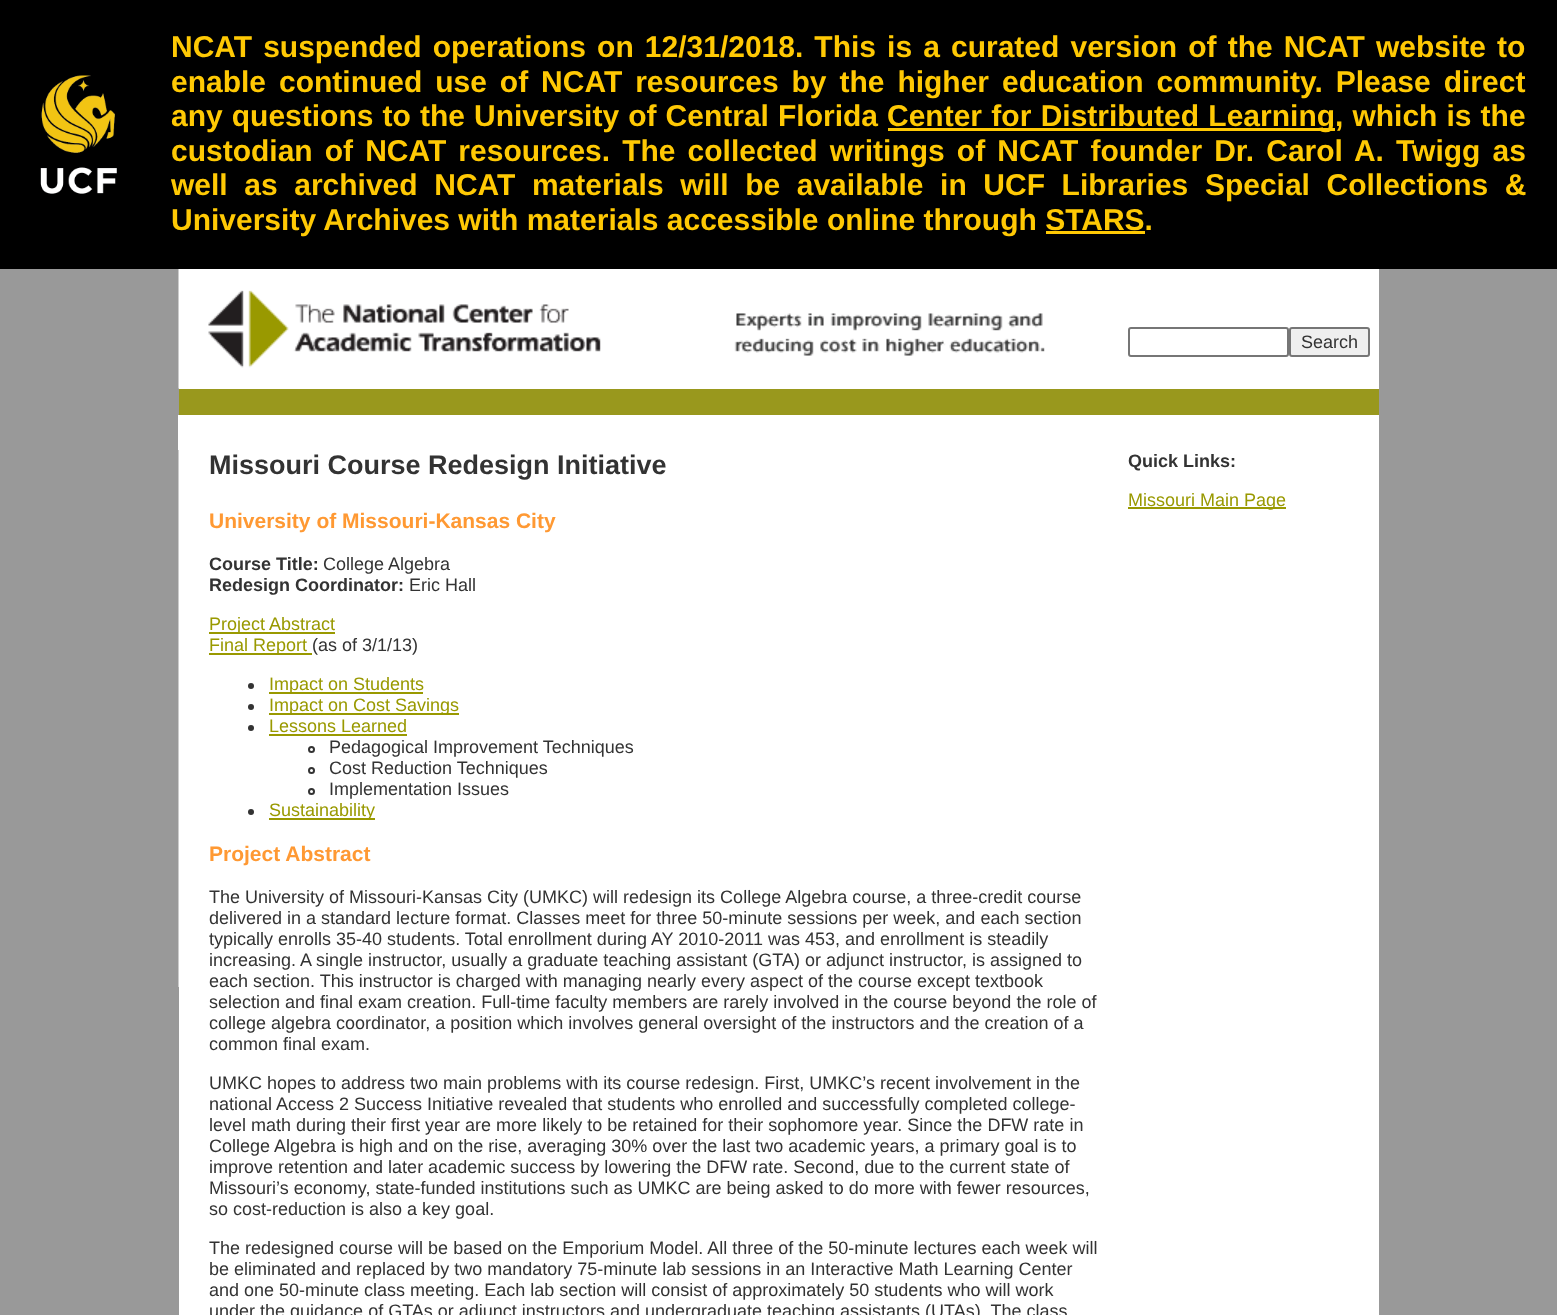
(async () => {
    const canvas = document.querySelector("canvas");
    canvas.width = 1557;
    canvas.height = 1315;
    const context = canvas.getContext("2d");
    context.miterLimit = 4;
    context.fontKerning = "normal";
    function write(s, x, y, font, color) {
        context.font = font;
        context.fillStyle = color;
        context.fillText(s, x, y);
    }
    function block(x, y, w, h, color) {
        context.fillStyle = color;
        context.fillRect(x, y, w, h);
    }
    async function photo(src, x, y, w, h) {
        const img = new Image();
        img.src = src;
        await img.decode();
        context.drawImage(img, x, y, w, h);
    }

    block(0, 0, 1557, 1315, "rgb(153, 153, 153)");
    block(0, 0, 1557, 269, "rgb(0, 0, 0)");
    await photo("media/1.png", 40, 75, 77, 119);
    context.wordSpacing = "2.75px";
    write("NCAT suspended operations on 12/31/2018. This is a curated version of the NCAT website to", 171, 57, "bold 30px Liberation Sans", "rgb(255, 201, 4)");
    context.wordSpacing = "4.6px";
    write("enable continued use of NCAT resources by the higher education community. Please direct", 171, 92, "bold 30px Liberation Sans", "rgb(255, 201, 4)");
    context.wordSpacing = "0.75px";
    write("any questions to the University of Central Florida", 171, 126, "bold 30px Liberation Sans", "rgb(255, 201, 4)");
    block(888, 128, 447, 3, "rgb(255, 201, 4)");
    context.wordSpacing = "1px";
    write("Center for Distributed Learning", 887, 126, "bold 30px Liberation Sans", "rgb(255, 201, 4)");
    context.wordSpacing = "0.75px";
    write(", which is the", 1335, 126, "bold 30px Liberation Sans", "rgb(255, 201, 4)");
    context.wordSpacing = "3.75px";
    write("custodian of NCAT resources. The collected writings of NCAT founder Dr. Carol A. Twigg as", 171, 161, "bold 30px Liberation Sans", "rgb(255, 201, 4)");
    context.wordSpacing = "8.25px";
    write("well as archived NCAT materials will be available in UCF Libraries Special Collections &", 171, 195, "bold 30px Liberation Sans", "rgb(255, 201, 4)");
    context.wordSpacing = "0px";
    write("University Archives with materials accessible online through STARS.", 171, 230, "bold 30px Liberation Sans", "rgb(255, 201, 4)");
    block(1046, 231, 99, 3, "rgb(255, 201, 4)");
    block(179, 388, 949, 1, "rgb(255, 255, 255)");
    await photo("media/2.png", 178, 269, 950, 120);
    block(1128, 269, 251, 120, "rgb(255, 255, 255)");
    context.beginPath();
    context.roundRect(1129, 328, 159, 28, 2);
    context.strokeStyle = "rgb(118, 118, 118)";
    context.lineWidth = 2;
    context.stroke();
    context.fillStyle = "rgb(239, 239, 239)";
    context.beginPath();
    context.roundRect(1290, 328, 79, 28, 2);
    context.fill();
    context.stroke();
    write("Search", 1301, 348, "18px Liberation Sans", "rgb(51, 51, 51)");
    block(179, 389, 1200, 26, "rgb(153, 152, 29)");
    block(178, 415, 1201, 35, "rgb(255, 255, 255)");
    block(179, 450, 1200, 865, "rgb(255, 255, 255)");
    block(178, 450, 1, 537, "rgb(204, 204, 204)");
    write("Missouri Course Redesign Initiative", 209, 474, "bold 27px Liberation Sans", "rgb(51, 51, 51)");
    write("University of Missouri-Kansas City", 209, 528, "bold 21px Liberation Sans", "rgb(255, 153, 51)");
    write("Course Title:", 209, 570, "bold 18px Liberation Sans", "rgb(51, 51, 51)");
    write("College Algebra", 323, 570, "18px Liberation Sans", "rgb(51, 51, 51)");
    write("Redesign Coordinator:", 209, 591, "bold 18px Liberation Sans", "rgb(51, 51, 51)");
    write("Eric Hall", 409, 591, "18px Liberation Sans", "rgb(51, 51, 51)");
    block(209, 632, 126, 2, "rgb(153, 153, 0)");
    write("Project Abstract", 209, 630, "18px Liberation Sans", "rgb(153, 153, 0)");
    block(209, 653, 103, 2, "rgb(153, 153, 0)");
    write("Final Report", 209, 651, "18px Liberation Sans", "rgb(153, 153, 0)");
    write("(as of 3/1/13)", 312, 651, "18px Liberation Sans", "rgb(51, 51, 51)");
    context.beginPath();
    context.arc(251, 686, 3, 0, Math.PI * 2);
    context.fill();
    block(269, 692, 154, 2, "rgb(153, 153, 0)");
    write("Impact on Students", 269, 690, "18px Liberation Sans", "rgb(153, 153, 0)");
    context.fillStyle = "rgb(51, 51, 51)";
    context.beginPath();
    context.arc(251, 707, 3, 0, Math.PI * 2);
    context.fill();
    block(269, 713, 190, 2, "rgb(153, 153, 0)");
    write("Impact on Cost Savings", 269, 711, "18px Liberation Sans", "rgb(153, 153, 0)");
    context.fillStyle = "rgb(51, 51, 51)";
    context.beginPath();
    context.arc(251, 728, 3, 0, Math.PI * 2);
    context.fill();
    write("Lessons Learned", 269, 732, "18px Liberation Sans", "rgb(153, 153, 0)");
    block(269, 734, 138, 2, "rgb(153, 153, 0)");
    context.beginPath();
    context.arc(311.5, 749.5, 2.5, 0, Math.PI * 2);
    context.strokeStyle = "rgb(51, 51, 51)";
    context.stroke();
    write("Pedagogical Improvement Techniques", 329, 753, "18px Liberation Sans", "rgb(51, 51, 51)");
    context.beginPath();
    context.arc(311.5, 770.5, 2.5, 0, Math.PI * 2);
    context.stroke();
    write("Cost Reduction Techniques", 329, 774, "18px Liberation Sans", "rgb(51, 51, 51)");
    context.beginPath();
    context.arc(311.5, 791.5, 2.5, 0, Math.PI * 2);
    context.stroke();
    write("Implementation Issues", 329, 795, "18px Liberation Sans", "rgb(51, 51, 51)");
    context.beginPath();
    context.arc(251, 812, 3, 0, Math.PI * 2);
    context.fill();
    block(269, 818, 106, 2, "rgb(153, 153, 0)");
    write("Sustainability", 269, 816, "18px Liberation Sans", "rgb(153, 153, 0)");
    write("Project Abstract", 209, 861, "bold 21px Liberation Sans", "rgb(255, 153, 51)");
    write("The University of Missouri-Kansas City (UMKC) will redesign its College Algebra course, a three-credit course", 209, 903, "18px Liberation Sans", "rgb(51, 51, 51)");
    write("delivered in a standard lecture format. Classes meet for three 50-minute sessions per week, and each section", 209, 924, "18px Liberation Sans", "rgb(51, 51, 51)");
    write("typically enrolls 35-40 students. Total enrollment during AY 2010-2011 was 453, and enrollment is steadily", 209, 945, "18px Liberation Sans", "rgb(51, 51, 51)");
    write("increasing. A single instructor, usually a graduate teaching assistant (GTA) or adjunct instructor, is assigned to", 209, 966, "18px Liberation Sans", "rgb(51, 51, 51)");
    write("each section. This instructor is charged with managing nearly every aspect of the course except textbook", 209, 987, "18px Liberation Sans", "rgb(51, 51, 51)");
    write("selection and final exam creation. Full-time faculty members are rarely involved in the course beyond the role of", 209, 1008, "18px Liberation Sans", "rgb(51, 51, 51)");
    write("college algebra coordinator, a position which involves general oversight of the instructors and the creation of a", 209, 1029, "18px Liberation Sans", "rgb(51, 51, 51)");
    write("common final exam.", 209, 1050, "18px Liberation Sans", "rgb(51, 51, 51)");
    write("UMKC hopes to address two main problems with its course redesign. First, UMKC’s recent involvement in the", 209, 1089, "18px Liberation Sans", "rgb(51, 51, 51)");
    write("national Access 2 Success Initiative revealed that students who enrolled and successfully completed college-", 209, 1110, "18px Liberation Sans", "rgb(51, 51, 51)");
    write("level math during their first year are more likely to be retained for their sophomore year. Since the DFW rate in", 209, 1131, "18px Liberation Sans", "rgb(51, 51, 51)");
    write("College Algebra is high and on the rise, averaging 30% over the last two academic years, a primary goal is to", 209, 1152, "18px Liberation Sans", "rgb(51, 51, 51)");
    write("improve retention and later academic success by lowering the DFW rate. Second, due to the current state of", 209, 1173, "18px Liberation Sans", "rgb(51, 51, 51)");
    write("Missouri’s economy, state-funded institutions such as UMKC are being asked to do more with fewer resources,", 209, 1194, "18px Liberation Sans", "rgb(51, 51, 51)");
    write("so cost-reduction is also a key goal.", 209, 1215, "18px Liberation Sans", "rgb(51, 51, 51)");
    write("The redesigned course will be based on the Emporium Model. All three of the 50-minute lectures each week will", 209, 1254, "18px Liberation Sans", "rgb(51, 51, 51)");
    write("be eliminated and replaced by two mandatory 75-minute lab sessions in an Interactive Math Learning Center", 209, 1275, "18px Liberation Sans", "rgb(51, 51, 51)");
    write("and one 50-minute class meeting. Each lab section will consist of approximately 50 students who will work", 209, 1296, "18px Liberation Sans", "rgb(51, 51, 51)");
    write("under the guidance of GTAs or adjunct instructors and undergraduate teaching assistants (UTAs). The class", 209, 1317, "18px Liberation Sans", "rgb(51, 51, 51)");
    write("Quick Links:", 1128, 467, "bold 18px Liberation Sans", "rgb(51, 51, 51)");
    block(1128, 507, 158, 2, "rgb(153, 153, 0)");
    write("Missouri Main Page", 1128, 506, "18px Liberation Sans", "rgb(153, 153, 0)");
})();
